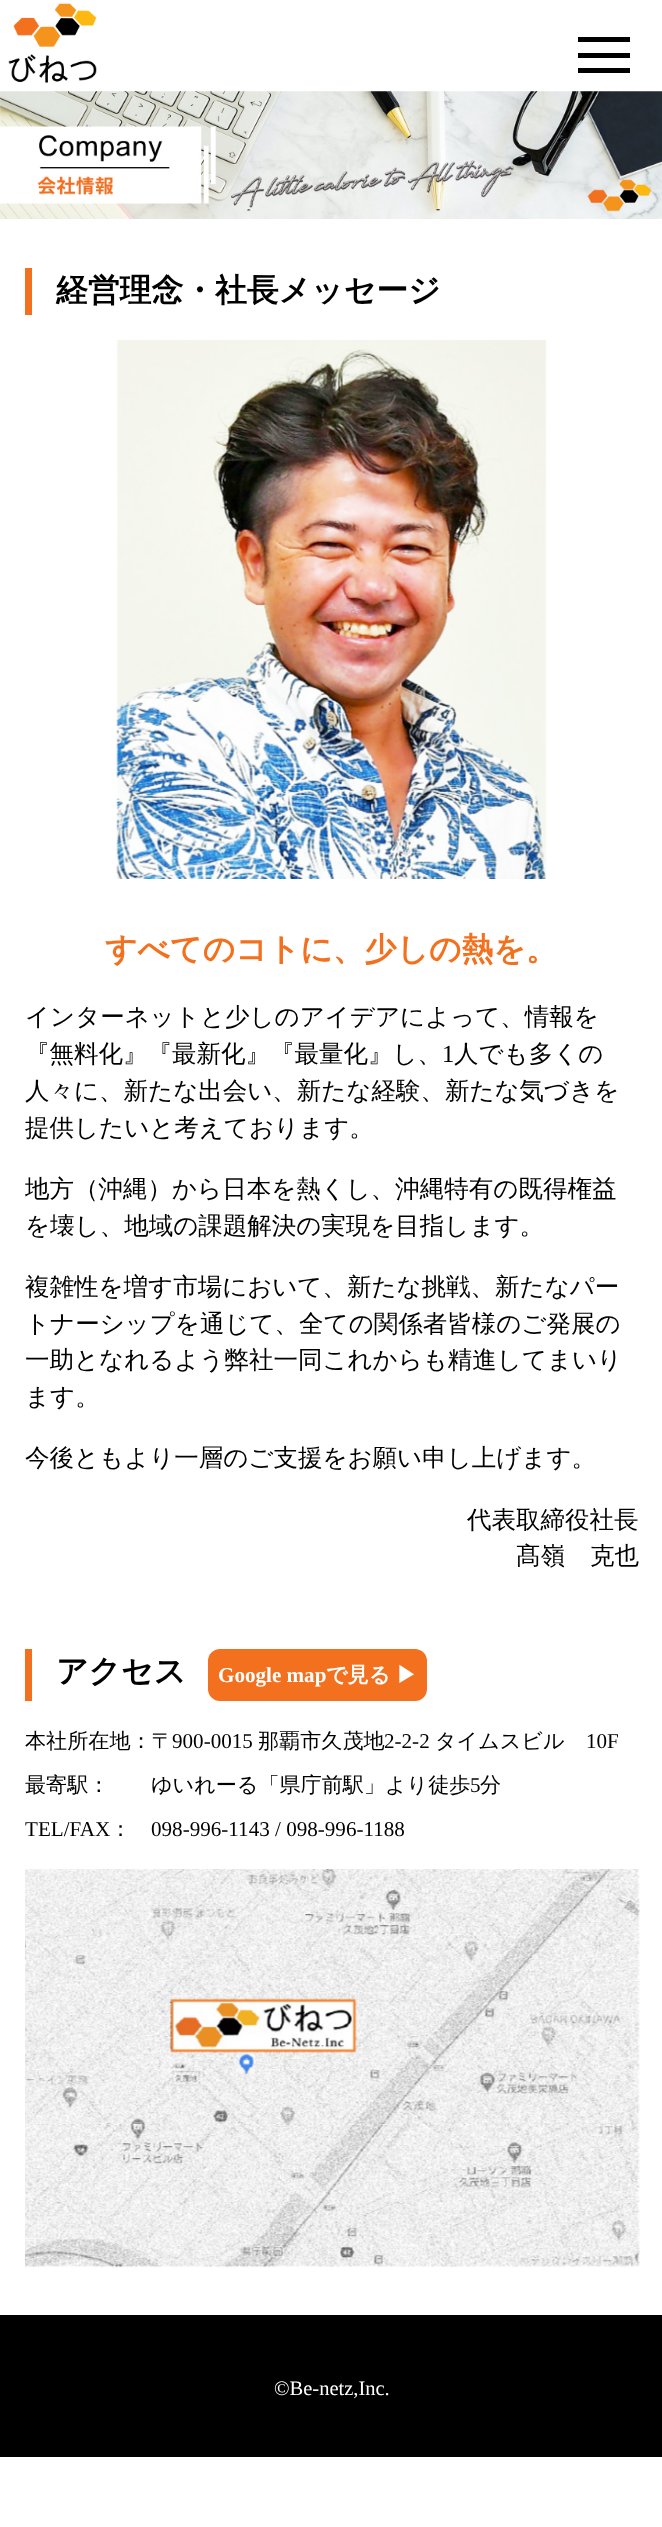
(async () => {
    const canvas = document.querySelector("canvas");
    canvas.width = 662;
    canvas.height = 2527;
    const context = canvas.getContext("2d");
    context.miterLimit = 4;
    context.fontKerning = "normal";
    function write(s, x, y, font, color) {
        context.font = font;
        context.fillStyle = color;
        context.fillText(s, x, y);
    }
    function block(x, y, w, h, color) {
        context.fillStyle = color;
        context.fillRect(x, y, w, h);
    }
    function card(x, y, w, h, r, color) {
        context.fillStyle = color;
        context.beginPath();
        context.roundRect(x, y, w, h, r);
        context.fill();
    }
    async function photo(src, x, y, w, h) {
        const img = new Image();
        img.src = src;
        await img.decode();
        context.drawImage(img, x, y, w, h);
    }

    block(0, 0, 662, 2527, "rgb(255, 255, 255)");
    await photo("media/1.png", 8, 3, 89, 80);
    block(578, 37, 52, 5, "rgb(0, 0, 0)");
    block(578, 53, 52, 5, "rgb(0, 0, 0)");
    block(578, 68, 52, 5, "rgb(0, 0, 0)");
    await photo("media/2.png", 0, 91, 662, 128);
    block(25, 268, 7, 47, "rgb(243, 112, 30)");
    write("経営理念・社長メッセージ", 56, 301, "bold 31.8px WenQuanYi Zen Hei", "rgb(0, 0, 0)");
    await photo("media/3.png", 116, 340, 431, 539);
    write("すべてのコトに、少しの熱を。", 105, 960, "bold 31.8px WenQuanYi Zen Hei", "rgb(243, 112, 29)");
    write("インターネットと少しのアイデアによって、情報を", 25, 1025, "500 24.5px WenQuanYi Zen Hei", "rgb(0, 0, 0)");
    write("『無料化』『最新化』『最量化』し、", 25, 1062, "500 24.5px WenQuanYi Zen Hei", "rgb(0, 0, 0)");
    write("1", 442, 1062, "24.5px Liberation Serif", "rgb(0, 0, 0)");
    write("人でも多くの", 454, 1062, "500 24.5px WenQuanYi Zen Hei", "rgb(0, 0, 0)");
    write("人々に、新たな出会い、新たな経験、新たな気づきを", 25, 1099, "500 24.5px WenQuanYi Zen Hei", "rgb(0, 0, 0)");
    write("提供したいと考えております。", 25, 1136, "500 24.5px WenQuanYi Zen Hei", "rgb(0, 0, 0)");
    write("地方（沖縄）から日本を熱くし、沖縄特有の既得権益", 25, 1197, "500 24.5px WenQuanYi Zen Hei", "rgb(0, 0, 0)");
    write("を壊し、地域の課題解決の実現を目指します。", 25, 1234, "500 24.5px WenQuanYi Zen Hei", "rgb(0, 0, 0)");
    write("複雑性を増す市場において、新たな挑戦、新たなパー", 25, 1295, "500 24.5px WenQuanYi Zen Hei", "rgb(0, 0, 0)");
    write("トナーシップを通じて、全ての関係者皆様のご発展の", 25, 1332, "500 24.5px WenQuanYi Zen Hei", "rgb(0, 0, 0)");
    write("一助となれるよう弊社一同これからも精進してまいり", 25, 1368, "500 24.5px WenQuanYi Zen Hei", "rgb(0, 0, 0)");
    write("ます。", 25, 1405, "500 24.5px WenQuanYi Zen Hei", "rgb(0, 0, 0)");
    write("今後ともより一層のご支援をお願い申し上げます。", 25, 1466, "500 24.5px WenQuanYi Zen Hei", "rgb(0, 0, 0)");
    write("代表取締役社長", 467, 1528, "500 24.5px WenQuanYi Zen Hei", "rgb(0, 0, 0)");
    write("髙嶺", 516, 1564, "500 24.5px WenQuanYi Zen Hei", "rgb(0, 0, 0)");
    write("克也", 590, 1564, "500 24.5px WenQuanYi Zen Hei", "rgb(0, 0, 0)");
    block(25, 1649, 7, 52, "rgb(243, 112, 30)");
    write("アクセス", 56, 1682, "bold 31.8px WenQuanYi Zen Hei", "rgb(0, 0, 0)");
    card(208, 1649, 219, 52, 12, "rgb(243, 112, 30)");
    write("Google map", 218, 1682, "bold 21.1px Liberation Serif", "rgb(255, 255, 255)");
    write("で見る", 326, 1682, "bold 21.1px WenQuanYi Zen Hei", "rgb(255, 255, 255)");
    write("▶", 396, 1682, "bold 21.1px WenQuanYi Zen Hei", "rgb(255, 255, 255)");
    write("本社所在地：〒", 25, 1748, "500 21.1px WenQuanYi Zen Hei", "rgb(0, 0, 0)");
    write("900-0015", 172, 1748, "21.1px Liberation Serif", "rgb(0, 0, 0)");
    write("那覇市久茂地", 258, 1748, "500 21.1px WenQuanYi Zen Hei", "rgb(0, 0, 0)");
    write("2-2-2", 384, 1748, "21.1px Liberation Serif", "rgb(0, 0, 0)");
    write("タイムスビル", 435, 1748, "500 21.1px WenQuanYi Zen Hei", "rgb(0, 0, 0)");
    write("10F", 586, 1748, "21.1px Liberation Serif", "rgb(0, 0, 0)");
    write("最寄駅：", 25, 1792, "500 21.1px WenQuanYi Zen Hei", "rgb(0, 0, 0)");
    write("ゆいれーる「県庁前駅」より徒歩", 151, 1792, "500 21.1px WenQuanYi Zen Hei", "rgb(0, 0, 0)");
    write("5", 470, 1792, "21.1px Liberation Serif", "rgb(0, 0, 0)");
    write("分", 480, 1792, "500 21.1px WenQuanYi Zen Hei", "rgb(0, 0, 0)");
    write("TEL/FAX", 25, 1836, "21.1px Liberation Serif", "rgb(0, 0, 0)");
    write("：", 110, 1836, "500 21.1px WenQuanYi Zen Hei", "rgb(0, 0, 0)");
    write("098-996-1143 / 098-996-1188", 151, 1836, "21.1px Liberation Serif", "rgb(0, 0, 0)");
    await photo("media/4.png", 25, 1869, 615, 399);
    block(0, 2315, 662, 142, "rgb(0, 0, 0)");
    write("©Be-netz,Inc.", 274, 2395, "20.5px Liberation Serif", "rgb(255, 255, 255)");
})();
